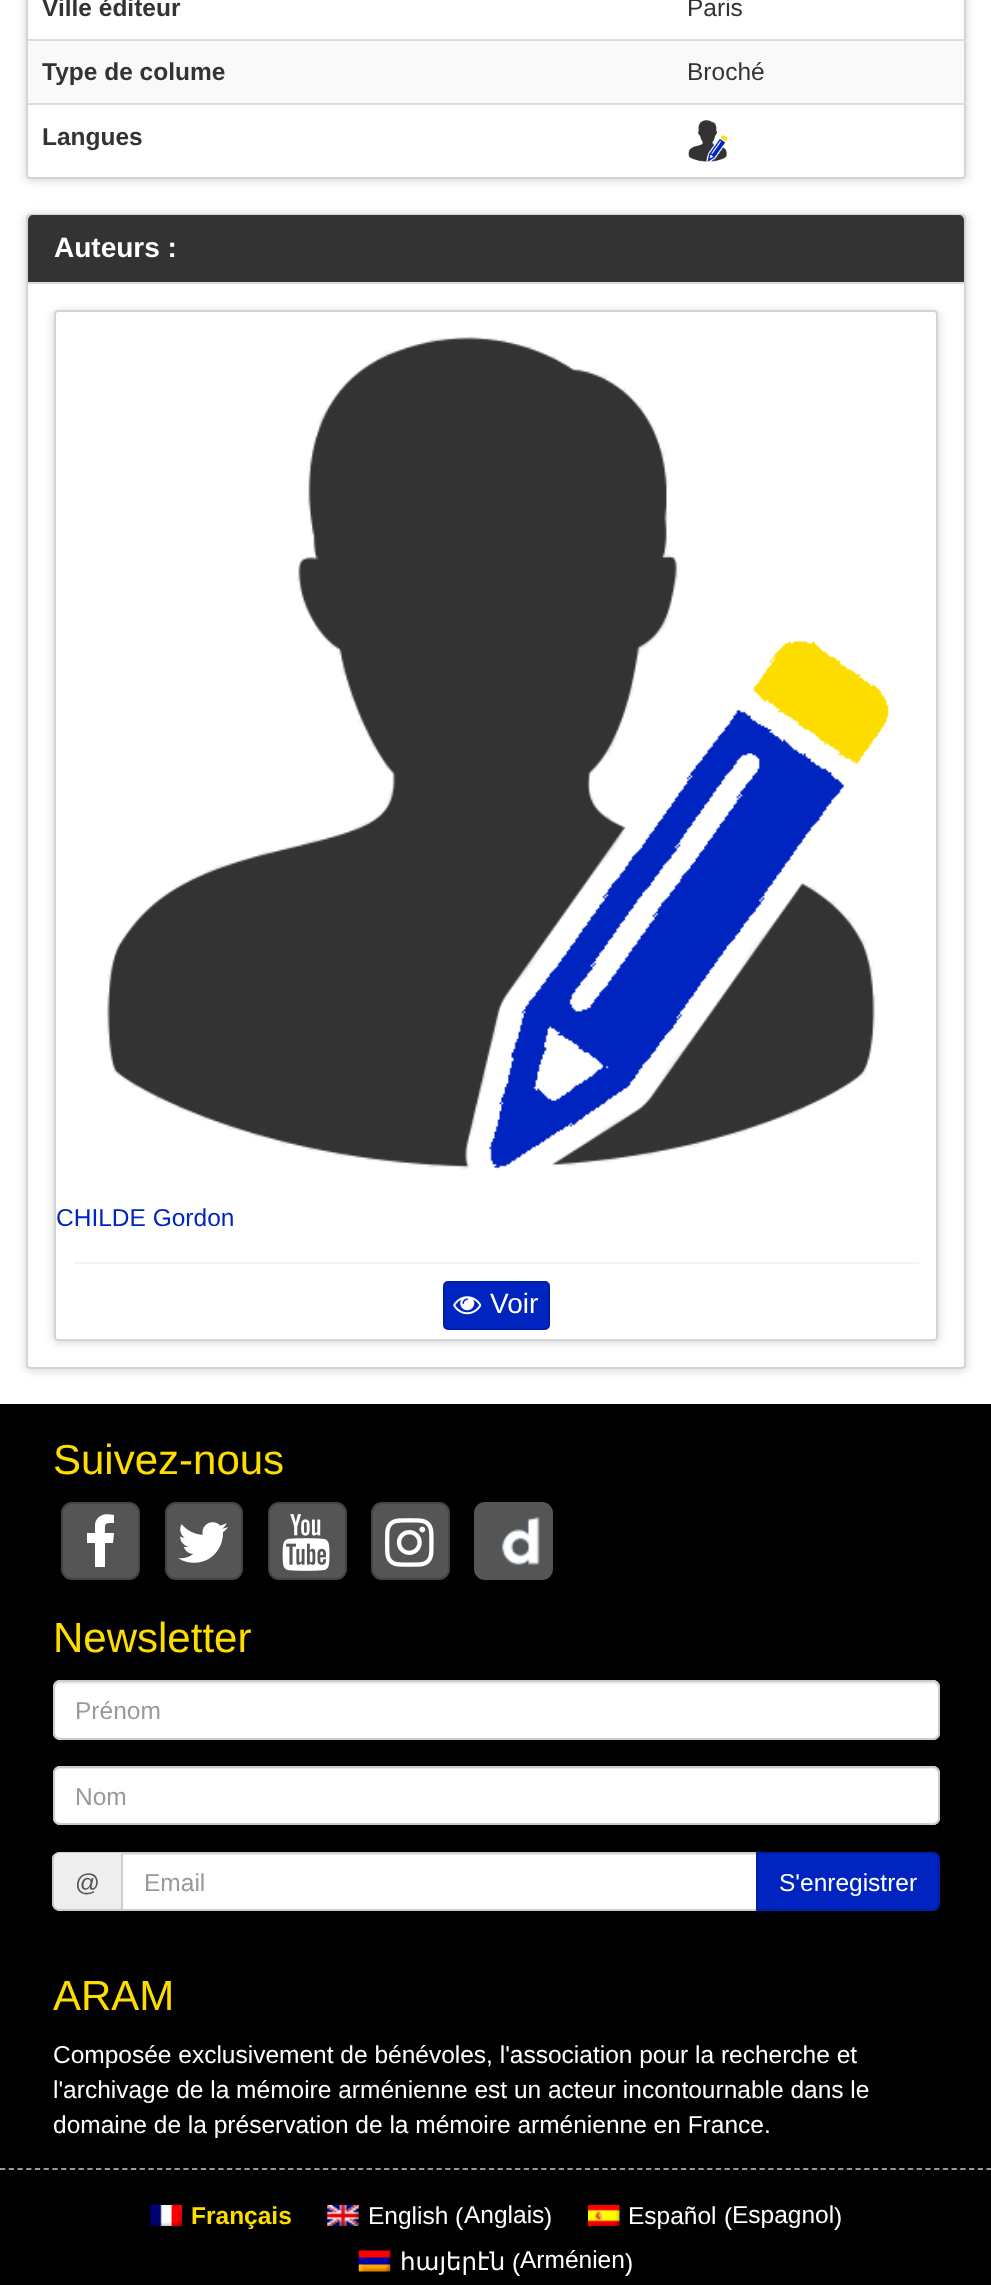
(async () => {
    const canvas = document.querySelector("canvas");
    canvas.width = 991;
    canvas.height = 2285;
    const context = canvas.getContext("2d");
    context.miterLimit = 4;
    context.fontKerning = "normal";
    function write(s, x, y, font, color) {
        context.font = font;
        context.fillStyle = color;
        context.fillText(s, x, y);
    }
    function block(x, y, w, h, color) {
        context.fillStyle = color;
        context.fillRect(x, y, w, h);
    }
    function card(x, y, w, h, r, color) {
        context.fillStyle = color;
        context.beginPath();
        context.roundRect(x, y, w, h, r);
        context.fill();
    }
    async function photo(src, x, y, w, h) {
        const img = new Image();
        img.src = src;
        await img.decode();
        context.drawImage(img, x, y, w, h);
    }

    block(0, 0, 991, 2285, "rgb(255, 255, 255)");
    context.fillStyle = "rgba(0, 0, 0, 0.18)";
    context.filter = "blur(5px)";
    context.beginPath();
    context.roundRect(26, -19, 940, 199, 4);
    context.fill();
    context.filter = "none";
    context.fillStyle = "rgb(255, 255, 255)";
    context.beginPath();
    context.roundRect(27, -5, 938, 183, 3);
    context.fill();
    context.strokeStyle = "rgb(212, 212, 212)";
    context.lineWidth = 2;
    context.stroke();
    write("Ville éditeur", 42, 16, "bold 24.5px Liberation Sans", "rgb(51, 51, 51)");
    write("Paris", 687, 16, "24.5px Liberation Sans", "rgb(51, 51, 51)");
    block(28, 41, 936, 62, "rgb(249, 249, 249)");
    write("Type de colume", 42, 80, "bold 24.5px Liberation Sans", "rgb(51, 51, 51)");
    block(28, 39, 938, 2, "rgb(221, 221, 221)");
    write("Broché", 687, 80, "24.5px Liberation Sans", "rgb(51, 51, 51)");
    block(28, 103, 938, 2, "rgb(221, 221, 221)");
    await photo("media/1.png", 688, 120, 40, 42);
    write("Langues", 42, 145, "bold 24.5px Liberation Sans", "rgb(51, 51, 51)");
    context.fillStyle = "rgba(0, 0, 0, 0.18)";
    context.filter = "blur(5px)";
    context.beginPath();
    context.roundRect(26, 215, 940, 1155, 4);
    context.fill();
    context.filter = "none";
    context.fillStyle = "rgb(255, 255, 255)";
    context.beginPath();
    context.roundRect(27, 215, 938, 1153, 3);
    context.fill();
    context.stroke();
    context.fillStyle = "rgb(51, 51, 51)";
    context.beginPath();
    context.roundRect(28, 215, 936, 69, [5, 5, 0, 0]);
    context.fill();
    block(28, 282, 936, 2, "rgb(221, 221, 221)");
    write("Auteurs :", 54, 257, "bold 28px Liberation Sans", "rgb(255, 255, 255)");
    context.save();
    context.beginPath();
    context.moveTo(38, 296);
    context.lineTo(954, 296);
    context.lineTo(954, 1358);
    context.lineTo(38, 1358);
    context.closePath();
    context.moveTo(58, 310);
    context.lineTo(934, 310);
    context.bezierCurveTo(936, 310, 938, 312, 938, 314);
    context.lineTo(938, 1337);
    context.bezierCurveTo(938, 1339, 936, 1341, 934, 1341);
    context.lineTo(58, 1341);
    context.bezierCurveTo(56, 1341, 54, 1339, 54, 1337);
    context.lineTo(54, 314);
    context.bezierCurveTo(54, 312, 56, 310, 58, 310);
    context.closePath();
    context.clip("evenodd");
    context.fillStyle = "rgba(0, 0, 0, 0.18)";
    context.filter = "blur(5px)";
    context.beginPath();
    context.roundRect(54, 312, 884, 1030, 4);
    context.fill();
    context.filter = "none";
    context.restore();
    context.beginPath();
    context.roundRect(55, 311, 882, 1029, 3);
    context.stroke();
    await photo("media/2.png", 106, 335, 783, 835);
    write("CHILDE Gordon", 56, 1226, "24.5px Liberation Sans", "rgb(0, 36, 192)");
    block(74, 1262, 845, 2, "rgb(243, 243, 243)");
    context.fillStyle = "rgb(0, 36, 192)";
    context.beginPath();
    context.roundRect(444, 1282, 105, 47, 4);
    context.fill();
    context.strokeStyle = "rgb(0, 31, 167)";
    context.stroke();
    await photo("media/3.png", 453, 1296, 29, 19);
    write("Voir", 490, 1313, "28px Liberation Sans", "rgb(255, 255, 255)");
    block(0, 1404, 991, 881, "rgb(0, 0, 0)");
    write("Suivez-nous", 53, 1474, "42px Liberation Sans", "rgb(253, 221, 0)");
    card(61, 1502, 79, 78, 11, "rgb(85, 85, 85)");
    context.beginPath();
    context.roundRect(62, 1503, 77, 76, 10);
    context.strokeStyle = "rgba(0, 0, 0, 0.2)";
    context.stroke();
    context.fillStyle = "rgb(255, 255, 255)";
    context.beginPath();
    context.moveTo(114, 1515);
    context.lineTo(114, 1523);
    context.bezierCurveTo(104, 1523, 105, 1523, 105, 1533);
    context.lineTo(114, 1533);
    context.lineTo(113, 1543);
    context.lineTo(105, 1543);
    context.lineTo(105, 1567);
    context.lineTo(95, 1567);
    context.lineTo(95, 1543);
    context.lineTo(87, 1543);
    context.lineTo(87, 1533);
    context.lineTo(95, 1533);
    context.lineTo(95, 1524);
    context.bezierCurveTo(97, 1514, 106, 1513, 114, 1515);
    context.closePath();
    context.fill();
    card(165, 1502, 78, 78, 11, "rgb(85, 85, 85)");
    context.beginPath();
    context.roundRect(166, 1503, 76, 76, 10);
    context.stroke();
    await photo("media/4.png", 178, 1522, 50, 41);
    card(268, 1502, 79, 78, 11, "rgb(85, 85, 85)");
    context.beginPath();
    context.roundRect(269, 1503, 77, 76, 10);
    context.stroke();
    await photo("media/5.png", 282, 1514, 48, 57);
    card(371, 1502, 79, 78, 11, "rgb(85, 85, 85)");
    context.beginPath();
    context.roundRect(372, 1503, 77, 76, 10);
    context.stroke();
    await photo("media/6.png", 385, 1518, 49, 49);
    card(474, 1502, 79, 78, 11, "rgb(85, 85, 85)");
    await photo("media/7.png", 501, 1516, 39, 49);
    write("Newsletter", 53, 1652, "42px Liberation Sans", "rgb(253, 221, 0)");
    card(53, 1680, 887, 60, 7, "rgb(255, 255, 255)");
    context.fillStyle = "rgb(236, 236, 236)";
    context.beginPath();
    context.moveTo(60, 1684);
    context.lineTo(933, 1684);
    context.bezierCurveTo(936, 1684, 938, 1686, 938, 1689);
    context.lineTo(938, 1687);
    context.bezierCurveTo(938, 1684, 936, 1682, 933, 1682);
    context.lineTo(59, 1682);
    context.bezierCurveTo(56, 1682, 54, 1684, 54, 1687);
    context.lineTo(54, 1689);
    context.bezierCurveTo(54, 1686, 57, 1684, 60, 1684);
    context.closePath();
    context.fill();
    context.beginPath();
    context.roundRect(54, 1681, 885, 58, 6);
    context.strokeStyle = "rgb(204, 204, 204)";
    context.stroke();
    write("Prénom", 75, 1719, "24.5px Liberation Sans", "rgb(153, 153, 153)");
    card(53, 1766, 887, 59, 7, "rgb(255, 255, 255)");
    context.fillStyle = "rgb(236, 236, 236)";
    context.beginPath();
    context.moveTo(60, 1769);
    context.lineTo(933, 1769);
    context.bezierCurveTo(936, 1769, 938, 1772, 938, 1774);
    context.lineTo(938, 1773);
    context.bezierCurveTo(938, 1770, 936, 1768, 933, 1768);
    context.lineTo(59, 1768);
    context.bezierCurveTo(56, 1768, 54, 1770, 54, 1773);
    context.lineTo(54, 1774);
    context.bezierCurveTo(54, 1772, 57, 1769, 60, 1769);
    context.closePath();
    context.fill();
    context.beginPath();
    context.roundRect(54, 1767, 885, 57, 6);
    context.stroke();
    write("Nom", 75, 1805, "24.5px Liberation Sans", "rgb(153, 153, 153)");
    context.fillStyle = "rgb(238, 238, 238)";
    context.beginPath();
    context.roundRect(53, 1852, 68, 59, [7, 0, 0, 7]);
    context.fill();
    context.fillStyle = "rgb(204, 204, 204)";
    context.beginPath();
    context.moveTo(60, 1852);
    context.lineTo(121, 1852);
    context.lineTo(121, 1911);
    context.lineTo(60, 1911);
    context.bezierCurveTo(56, 1911, 52, 1908, 52, 1904);
    context.lineTo(52, 1858);
    context.bezierCurveTo(52, 1855, 56, 1852, 60, 1852);
    context.closePath();
    context.moveTo(60, 1853);
    context.lineTo(121, 1853);
    context.lineTo(121, 1909);
    context.lineTo(60, 1909);
    context.bezierCurveTo(57, 1909, 54, 1907, 54, 1904);
    context.lineTo(54, 1858);
    context.bezierCurveTo(54, 1856, 57, 1853, 60, 1853);
    context.closePath();
    context.fill("evenodd");
    write("@", 75, 1891, "24.5px Liberation Sans", "rgb(85, 85, 85)");
    block(123, 1855, 633, 54, "rgb(255, 255, 255)");
    block(123, 1854, 633, 1, "rgb(236, 236, 236)");
    context.strokeRect(122, 1853, 635, 57);
    write("Email", 144, 1891, "24.5px Liberation Sans", "rgb(153, 153, 153)");
    context.fillStyle = "rgb(0, 36, 192)";
    context.beginPath();
    context.roundRect(757, 1853, 182, 57, [0, 6, 6, 0]);
    context.fill();
    context.strokeStyle = "rgb(0, 31, 167)";
    context.stroke();
    write("S'enregistrer", 779, 1891, "24.5px Liberation Sans", "rgb(255, 255, 255)");
    write("ARAM", 53, 2010, "42px Liberation Sans", "rgb(253, 221, 0)");
    write("Composée exclusivement de bénévoles, l'association pour la recherche et", 53, 2063, "24.5px Liberation Sans", "rgb(255, 255, 255)");
    write("l'archivage de la mémoire arménienne est un acteur incontournable dans le", 53, 2098, "24.5px Liberation Sans", "rgb(255, 255, 255)");
    write("domaine de la préservation de la mémoire arménienne en France.", 53, 2133, "24.5px Liberation Sans", "rgb(255, 255, 255)");
    context.beginPath();
    context.moveTo(0, 2169);
    context.lineTo(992, 2169);
    context.strokeStyle = "rgb(153, 153, 153)";
    context.lineWidth = 1.8;
    context.setLineDash([5.25, 3.48]);
    context.stroke();
    await photo("media/8.png", 150, 2205, 32, 21);
    write("Français", 191, 2224, "bold 24.5px Liberation Sans", "rgb(253, 221, 0)");
    await photo("media/9.png", 327, 2205, 32, 21);
    write("English", 368, 2224, "24.5px Liberation Sans", "rgb(255, 255, 255)");
    write("(", 455, 2225, "24.5px Liberation Sans", "rgb(255, 255, 255)");
    write("Anglais", 464, 2223, "24.5px Liberation Sans", "rgb(255, 255, 255)");
    write(")", 544, 2225, "24.5px Liberation Sans", "rgb(255, 255, 255)");
    await photo("media/10.png", 588, 2205, 32, 21);
    write("Español", 628, 2224, "24.5px Liberation Sans", "rgb(255, 255, 255)");
    write("(", 724, 2225, "24.5px Liberation Sans", "rgb(255, 255, 255)");
    write("Espagnol", 732, 2223, "24.5px Liberation Sans", "rgb(255, 255, 255)");
    write(")", 834, 2225, "24.5px Liberation Sans", "rgb(255, 255, 255)");
    await photo("media/11.png", 358, 2250, 33, 22);
    write("հայերէն", 400, 2270, "24.5px DejaVu Sans", "rgb(255, 255, 255)");
    write("(", 512, 2271, "24.5px Liberation Sans", "rgb(255, 255, 255)");
    write("Arménien", 520, 2268, "24.5px Liberation Sans", "rgb(255, 255, 255)");
    write(")", 625, 2271, "24.5px Liberation Sans", "rgb(255, 255, 255)");
})();
